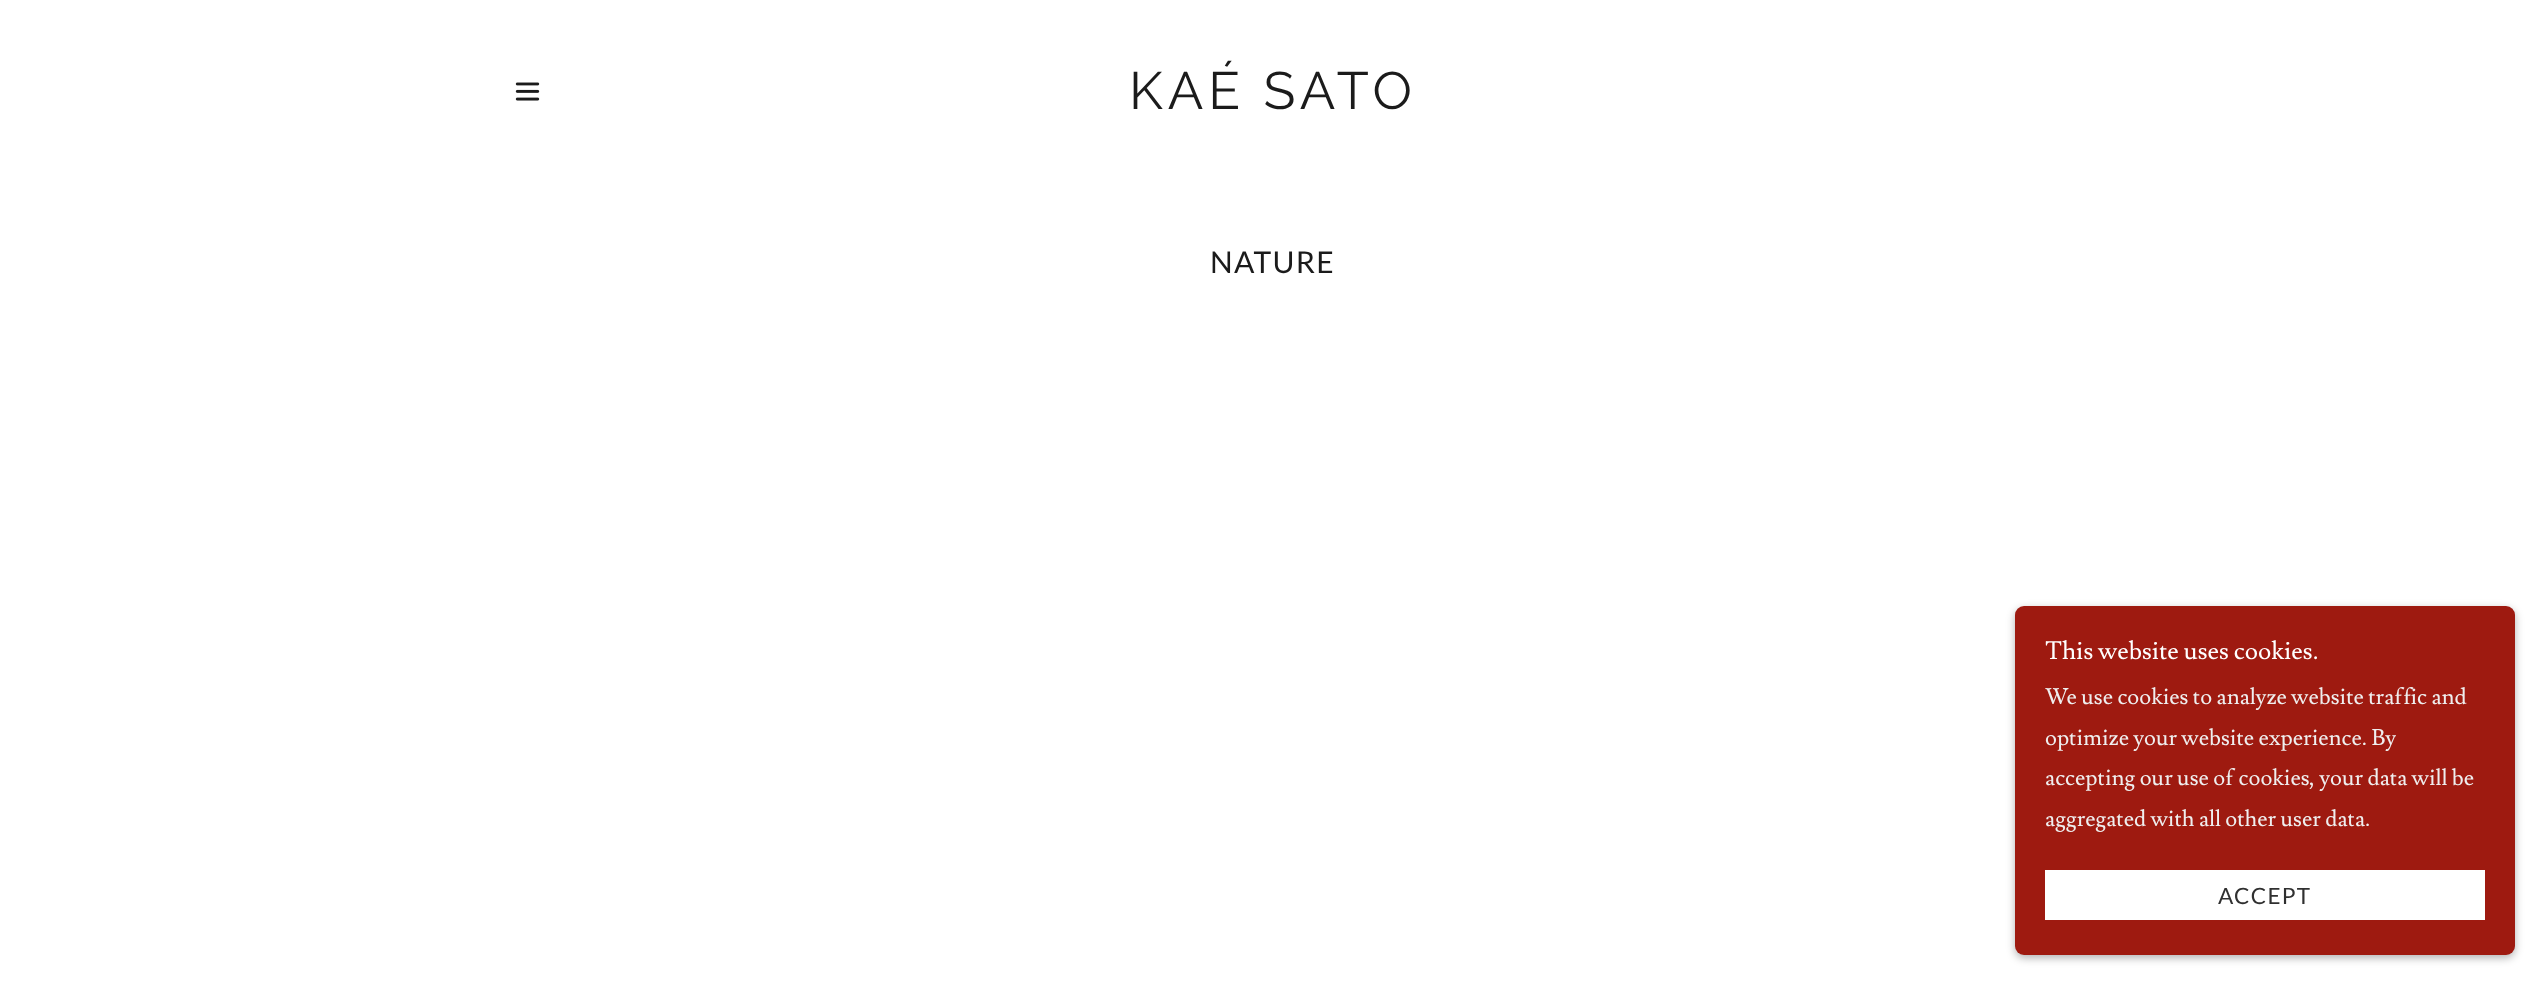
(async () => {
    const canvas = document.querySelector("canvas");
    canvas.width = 2544;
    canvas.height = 984;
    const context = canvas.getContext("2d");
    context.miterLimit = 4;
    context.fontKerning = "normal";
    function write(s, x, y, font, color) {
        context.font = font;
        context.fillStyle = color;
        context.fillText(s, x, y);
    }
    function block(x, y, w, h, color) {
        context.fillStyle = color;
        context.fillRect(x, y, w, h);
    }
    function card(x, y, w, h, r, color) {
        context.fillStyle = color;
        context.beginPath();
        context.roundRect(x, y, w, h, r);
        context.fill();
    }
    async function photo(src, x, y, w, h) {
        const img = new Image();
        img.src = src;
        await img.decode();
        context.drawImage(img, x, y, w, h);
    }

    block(0, 0, 2544, 984, "rgb(255, 255, 255)");
    await photo("media/1.png", 515, 82, 25, 19);
    context.letterSpacing = "5px";
    write("KAÉ SATO", 1129, 109, "52.5px Raleway", "rgb(27, 27, 27)");
    context.letterSpacing = "1.25px";
    write("NATURE", 1210, 273, "30px Lato", "rgb(27, 27, 27)");
    context.fillStyle = "rgba(0, 0, 0, 0.3)";
    context.filter = "blur(4px)";
    context.beginPath();
    context.roundRect(2015, 609, 500, 349, 9);
    context.fill();
    context.filter = "none";
    card(2015, 606, 500, 349, 9, "rgb(158, 26, 16)");
    context.letterSpacing = "0px";
    write("This website uses cookies.", 2045, 659, "25px Lusitana", "rgb(255, 255, 255)");
    write("We use cookies to analyze website traffic and", 2045, 704, "22.5px Lusitana", "rgb(239, 238, 238)");
    write("optimize your website experience. By", 2045, 745, "22.5px Lusitana", "rgb(239, 238, 238)");
    write("accepting our use of cookies, your data will be", 2045, 785, "22.5px Lusitana", "rgb(239, 238, 238)");
    write("aggregated with all other user data.", 2045, 826, "22.5px Lusitana", "rgb(239, 238, 238)");
    block(2045, 870, 440, 50, "rgb(255, 255, 255)");
    context.letterSpacing = "1.25px";
    write("ACCEPT", 2218, 904, "22.5px Lato", "rgb(48, 48, 48)");
})();
